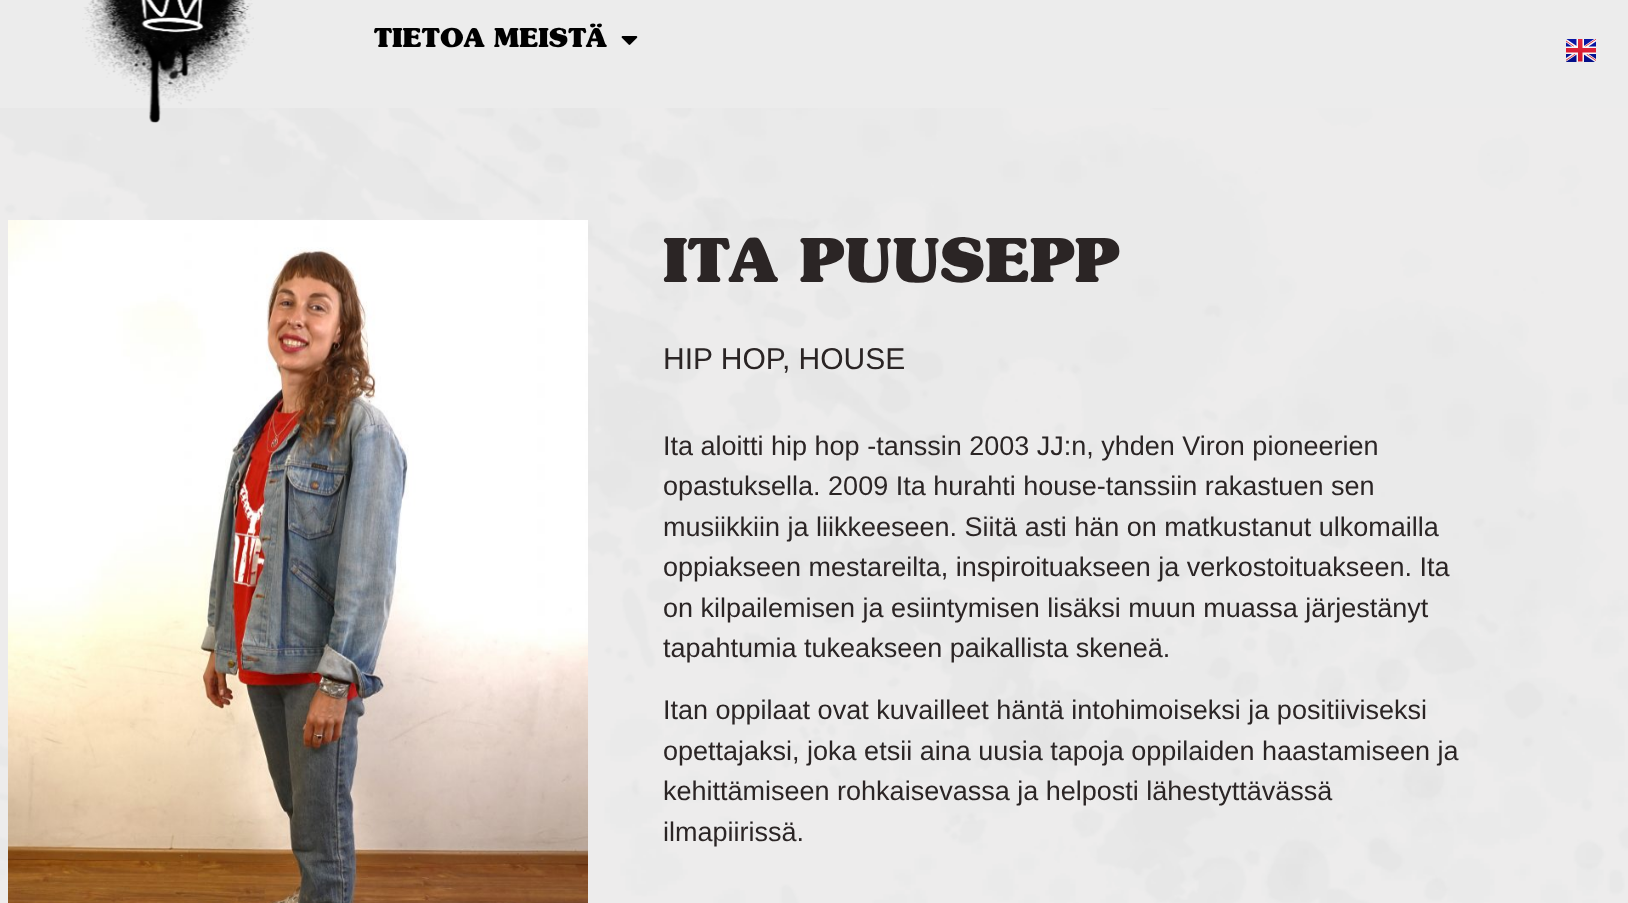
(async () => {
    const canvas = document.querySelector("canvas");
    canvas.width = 1628;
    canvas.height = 903;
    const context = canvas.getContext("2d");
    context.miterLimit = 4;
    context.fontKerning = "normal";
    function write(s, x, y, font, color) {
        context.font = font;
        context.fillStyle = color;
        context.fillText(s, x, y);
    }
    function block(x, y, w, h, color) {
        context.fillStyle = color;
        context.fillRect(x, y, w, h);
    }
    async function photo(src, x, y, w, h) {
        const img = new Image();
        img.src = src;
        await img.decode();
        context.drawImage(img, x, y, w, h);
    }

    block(0, 0, 1628, 903, "rgb(255, 255, 255)");
    await photo("media/1.png", 0, 108, 1628, 795);
    block(0, 0, 1628, 108, "rgb(236, 236, 236)");
    await photo("media/2.png", 82, 0, 172, 123);
    write("TIETOA MEISTÄ", 374, 47, "900 27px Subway", "rgb(0, 0, 0)");
    await photo("media/3.png", 621, 36, 17, 9);
    await photo("media/4.png", 1566, 39, 30, 23);
    await photo("media/5.png", 8, 220, 580, 683);
    write("ITA PUUSEPP", 663, 282, "900 63px Subway", "rgb(43, 37, 37)");
    write("HIP HOP, HOUSE", 663, 369, "30px Liberation Sans", "rgb(43, 37, 37)");
    write("Ita aloitti hip hop -tanssin 2003 JJ:n, yhden Viron pioneerien", 663, 455, "27px Liberation Sans", "rgb(43, 37, 37)");
    write("opastuksella. 2009 Ita hurahti house-tanssiin rakastuen sen", 663, 495, "27px Liberation Sans", "rgb(43, 37, 37)");
    write("musiikkiin ja liikkeeseen. Siitä asti hän on matkustanut ulkomailla", 663, 536, "27px Liberation Sans", "rgb(43, 37, 37)");
    write("oppiakseen mestareilta, inspiroituakseen ja verkostoituakseen. Ita", 663, 576, "27px Liberation Sans", "rgb(43, 37, 37)");
    write("on kilpailemisen ja esiintymisen lisäksi muun muassa järjestänyt", 663, 617, "27px Liberation Sans", "rgb(43, 37, 37)");
    write("tapahtumia tukeakseen paikallista skeneä.", 663, 657, "27px Liberation Sans", "rgb(43, 37, 37)");
    write("Itan oppilaat ovat kuvailleet häntä intohimoiseksi ja positiiviseksi", 663, 719, "27px Liberation Sans", "rgb(43, 37, 37)");
    write("opettajaksi, joka etsii aina uusia tapoja oppilaiden haastamiseen ja", 663, 760, "27px Liberation Sans", "rgb(43, 37, 37)");
    write("kehittämiseen rohkaisevassa ja helposti lähestyttävässä", 663, 800, "27px Liberation Sans", "rgb(43, 37, 37)");
    write("ilmapiirissä.", 663, 841, "27px Liberation Sans", "rgb(43, 37, 37)");
})();
